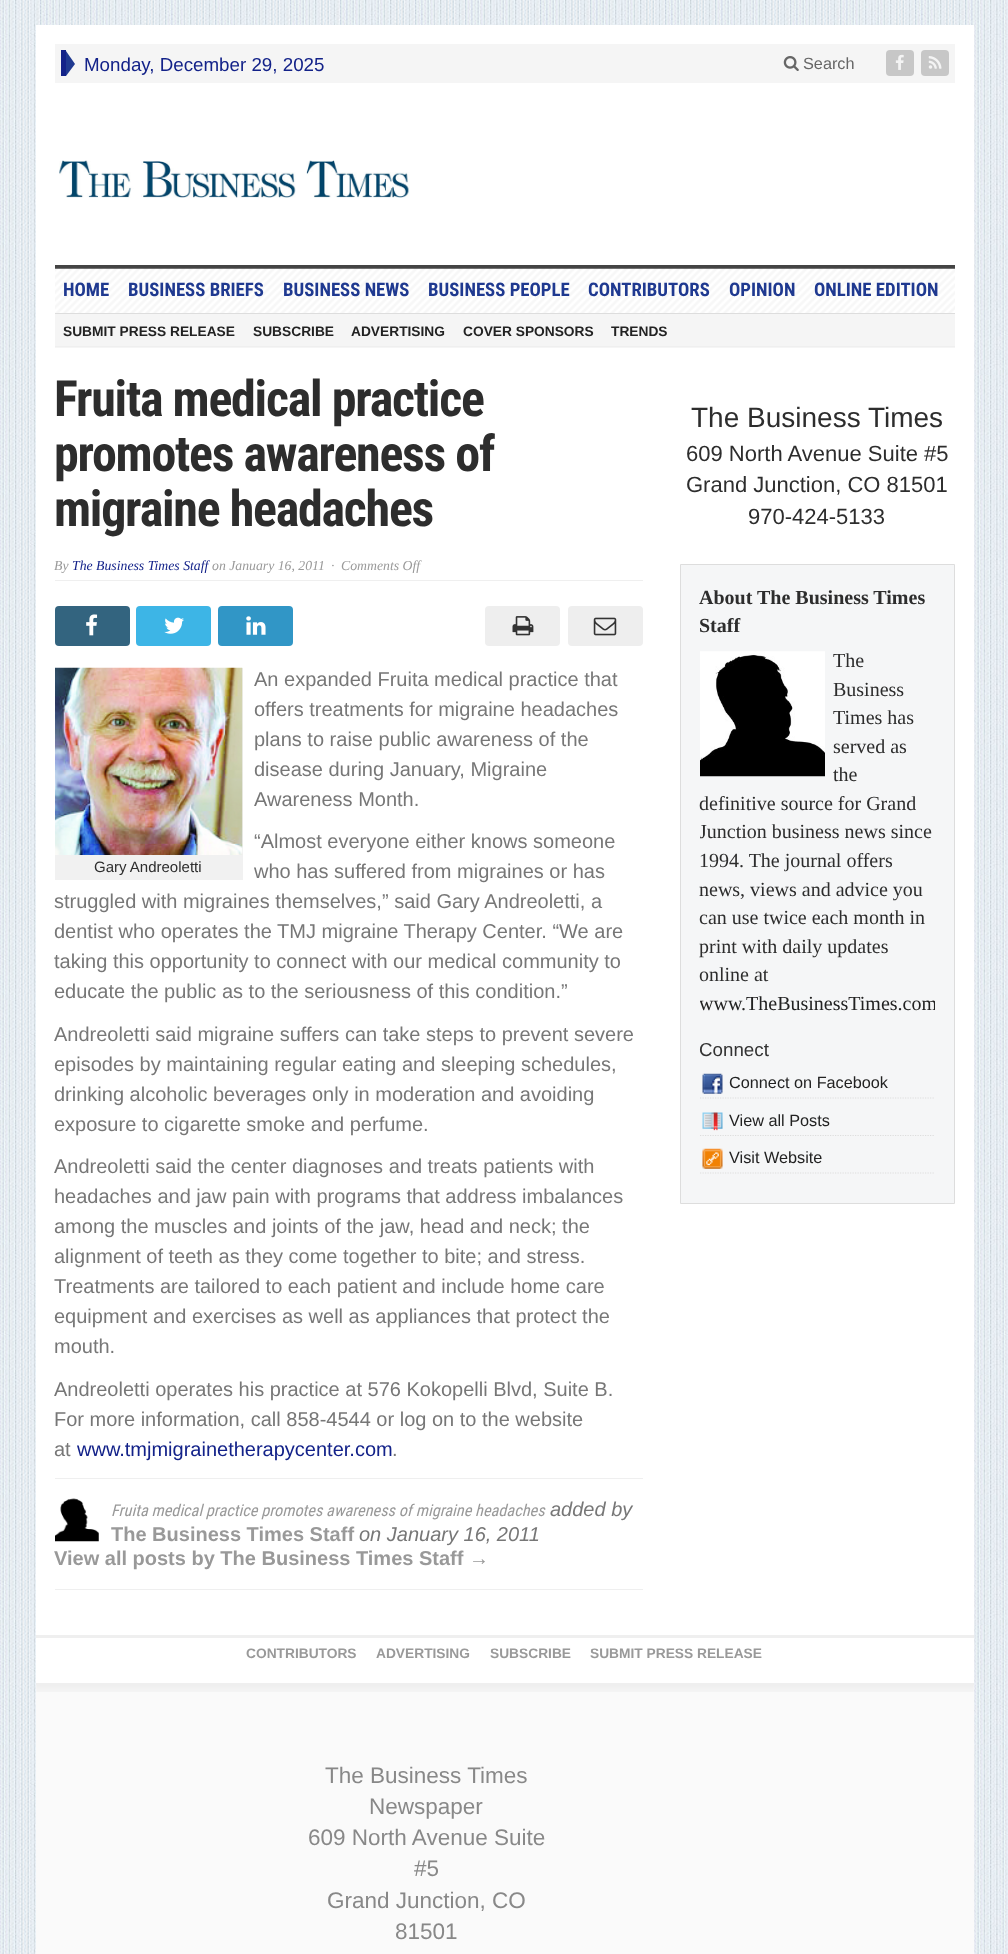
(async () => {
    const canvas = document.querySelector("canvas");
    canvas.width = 1008;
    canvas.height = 1954;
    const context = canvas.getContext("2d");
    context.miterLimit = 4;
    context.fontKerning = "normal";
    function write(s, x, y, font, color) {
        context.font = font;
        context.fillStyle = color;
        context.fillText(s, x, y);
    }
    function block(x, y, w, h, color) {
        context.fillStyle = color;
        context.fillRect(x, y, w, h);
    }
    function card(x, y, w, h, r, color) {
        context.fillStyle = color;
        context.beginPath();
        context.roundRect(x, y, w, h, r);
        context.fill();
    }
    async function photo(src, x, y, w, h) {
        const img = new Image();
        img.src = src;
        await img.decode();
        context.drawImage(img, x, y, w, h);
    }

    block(0, 0, 1008, 1954, "rgb(255, 255, 255)");
    await photo("media/1.png", 0, 0, 1008, 1954);
    block(36, 25, 938, 1658, "rgb(255, 255, 255)");
    block(55, 44, 900, 39, "rgb(245, 245, 245)");
    block(61, 50, 5, 26, "rgb(19, 34, 137)");
    context.fillStyle = "rgb(31, 57, 144)";
    context.beginPath();
    context.moveTo(66, 76);
    context.lineTo(66, 51);
    context.lineTo(75, 64);
    context.closePath();
    context.fill();
    write("Monday, December 29, 2025", 84, 71, "18.75px Liberation Sans", "rgb(19, 34, 137)");
    await photo("media/2.png", 783, 56, 16, 15);
    write("Search", 803, 69, "16.25px Liberation Sans", "rgb(102, 102, 102)");
    card(886, 50, 28, 26, 4, "rgb(199, 199, 199)");
    await photo("media/3.png", 895, 54, 9, 16);
    card(921, 50, 28, 26, 4, "rgb(199, 199, 199)");
    await photo("media/4.png", 928, 56, 14, 13);
    block(55, 265, 900, 4, "rgb(68, 68, 68)");
    await photo("media/5.png", 59, 160, 351, 38);
    await photo("media/6.png", 55, 268, 900, 45);
    block(55, 313, 900, 1, "rgb(221, 221, 221)");
    write("HOME", 63, 296, "bold 18.75px Roboto Condensed", "rgb(31, 57, 144)");
    write("BUSINESS BRIEFS", 128, 296, "bold 18.75px Roboto Condensed", "rgb(31, 57, 144)");
    write("BUSINESS NEWS", 283, 296, "bold 18.75px Roboto Condensed", "rgb(31, 57, 144)");
    write("BUSINESS PEOPLE", 428, 296, "bold 18.75px Roboto Condensed", "rgb(31, 57, 144)");
    write("CONTRIBUTORS", 588, 296, "bold 18.75px Roboto Condensed", "rgb(31, 57, 144)");
    write("OPINION", 729, 296, "bold 18.75px Roboto Condensed", "rgb(31, 57, 144)");
    write("ONLINE EDITION", 814, 296, "bold 18.75px Roboto Condensed", "rgb(31, 57, 144)");
    block(55, 314, 900, 34, "rgb(245, 245, 245)");
    block(55, 346, 900, 1, "rgb(239, 239, 239)");
    write("SUBMIT PRESS RELEASE", 63, 336, "bold 13.75px Liberation Sans", "rgb(34, 34, 34)");
    write("SUBSCRIBE", 253, 336, "bold 13.75px Liberation Sans", "rgb(34, 34, 34)");
    write("ADVERTISING", 351, 336, "bold 13.75px Liberation Sans", "rgb(34, 34, 34)");
    write("COVER SPONSORS", 463, 336, "bold 13.75px Liberation Sans", "rgb(34, 34, 34)");
    write("TRENDS", 611, 336, "bold 13.75px Liberation Sans", "rgb(34, 34, 34)");
    block(55, 580, 588, 1, "rgb(239, 239, 239)");
    context.letterSpacing = "-1.25px";
    write("Fruita medical practice", 54, 416, "bold 50px Roboto Condensed", "rgb(45, 45, 45)");
    write("promotes awareness of", 54, 471, "bold 50px Roboto Condensed", "rgb(45, 45, 45)");
    write("migraine headaches", 54, 526, "bold 50px Roboto Condensed", "rgb(45, 45, 45)");
    context.letterSpacing = "0px";
    write("By", 54, 570, "italic 13.75px Liberation Serif", "rgb(153, 153, 153)");
    write("The Business Times Staff", 72, 570, "italic 13.75px Liberation Serif", "rgb(19, 34, 137)");
    write("on January 16, 2011", 212, 570, "italic 13.75px Liberation Serif", "rgb(153, 153, 153)");
    write("·", 331, 570, "italic 13.75px Liberation Serif", "rgb(153, 153, 153)");
    write("Comments Off", 341, 570, "italic 13.75px Liberation Serif", "rgb(153, 153, 153)");
    card(55, 606, 75, 40, 4, "rgb(51, 100, 127)");
    await photo("media/7.png", 86, 614, 12, 22);
    card(136, 606, 75, 40, 4, "rgb(61, 181, 230)");
    await photo("media/8.png", 164, 617, 20, 17);
    card(218, 606, 75, 40, 4, "rgb(49, 150, 198)");
    await photo("media/9.png", 246, 616, 20, 19);
    card(485, 606, 75, 40, 4, "rgb(238, 238, 238)");
    await photo("media/10.png", 512, 616, 22, 20);
    card(568, 606, 75, 40, 4, "rgb(238, 238, 238)");
    await photo("media/11.png", 593, 617, 24, 19);
    write("An expanded Fruita medical practice that", 254, 686, "20px Liberation Sans", "rgb(119, 119, 119)");
    write("offers treatments for migraine headaches", 254, 716, "20px Liberation Sans", "rgb(119, 119, 119)");
    write("plans to raise public awareness of the", 254, 746, "20px Liberation Sans", "rgb(119, 119, 119)");
    write("disease during January, Migraine", 254, 776, "20px Liberation Sans", "rgb(119, 119, 119)");
    write("Awareness Month.", 254, 806, "20px Liberation Sans", "rgb(119, 119, 119)");
    write("“Almost everyone either knows someone", 254, 848, "20px Liberation Sans", "rgb(119, 119, 119)");
    write("who has suffered from migraines or has", 254, 878, "20px Liberation Sans", "rgb(119, 119, 119)");
    write("struggled with migraines themselves,” said Gary Andreoletti, a", 54, 908, "20px Liberation Sans", "rgb(119, 119, 119)");
    write("dentist who operates the TMJ migraine Therapy Center. “We are", 54, 938, "20px Liberation Sans", "rgb(119, 119, 119)");
    write("taking this opportunity to connect with our medical community to", 54, 968, "20px Liberation Sans", "rgb(119, 119, 119)");
    write("educate the public as to the seriousness of this condition.”", 54, 998, "20px Liberation Sans", "rgb(119, 119, 119)");
    block(55, 668, 188, 212, "rgb(241, 241, 241)");
    await photo("media/12.png", 55, 667, 188, 188);
    write("Gary Andreoletti", 94, 872, "15px Liberation Sans", "rgb(45, 45, 45)");
    write("Andreoletti said migraine suffers can take steps to prevent severe", 54, 1041, "20px Liberation Sans", "rgb(119, 119, 119)");
    write("episodes by maintaining regular eating and sleeping schedules,", 54, 1071, "20px Liberation Sans", "rgb(119, 119, 119)");
    write("drinking alcoholic beverages only in moderation and avoiding", 54, 1101, "20px Liberation Sans", "rgb(119, 119, 119)");
    write("exposure to cigarette smoke and perfume.", 54, 1131, "20px Liberation Sans", "rgb(119, 119, 119)");
    write("Andreoletti said the center diagnoses and treats patients with", 54, 1173, "20px Liberation Sans", "rgb(119, 119, 119)");
    write("headaches and jaw pain with programs that address imbalances", 54, 1203, "20px Liberation Sans", "rgb(119, 119, 119)");
    write("among the muscles and joints of the jaw, head and neck; the", 54, 1233, "20px Liberation Sans", "rgb(119, 119, 119)");
    write("alignment of teeth as they come together to bite; and stress.", 54, 1263, "20px Liberation Sans", "rgb(119, 119, 119)");
    write("Treatments are tailored to each patient and include home care", 54, 1293, "20px Liberation Sans", "rgb(119, 119, 119)");
    write("equipment and exercises as well as appliances that protect the", 54, 1323, "20px Liberation Sans", "rgb(119, 119, 119)");
    write("mouth.", 54, 1353, "20px Liberation Sans", "rgb(119, 119, 119)");
    write("Andreoletti operates his practice at 576 Kokopelli Blvd, Suite B.", 54, 1396, "20px Liberation Sans", "rgb(119, 119, 119)");
    write("For more information, call 858-4544 or log on to the website", 54, 1426, "20px Liberation Sans", "rgb(119, 119, 119)");
    write("at", 54, 1456, "20px Liberation Sans", "rgb(119, 119, 119)");
    write("www.tmjmigrainetherapycenter.com", 77, 1456, "20px Liberation Sans", "rgb(19, 34, 137)");
    write(".", 392, 1456, "20px Liberation Sans", "rgb(119, 119, 119)");
    block(55, 1478, 588, 1, "rgb(239, 239, 239)");
    block(55, 1589, 588, 1, "rgb(239, 239, 239)");
    await photo("media/13.png", 55, 1498, 44, 44);
    write("Fruita medical practice promotes awareness of migraine headaches", 111, 1516, "italic 16.25px Roboto Condensed", "rgb(153, 153, 153)");
    write("added by", 550, 1516, "italic 20px Liberation Sans", "rgb(119, 119, 119)");
    write("The Business Times Staff", 111, 1541, "bold 20px Liberation Sans", "rgb(153, 153, 153)");
    write("on January 16, 2011", 359, 1541, "italic 20px Liberation Sans", "rgb(119, 119, 119)");
    write("View all posts by The Business Times Staff →", 54, 1565, "bold 20px Liberation Sans", "rgb(153, 153, 153)");
    write("The Business Times", 691, 427, "28px Liberation Sans", "rgb(45, 45, 45)");
    write("609 North Avenue Suite #5", 686, 461, "22px Liberation Sans", "rgb(45, 45, 45)");
    write("Grand Junction, CO 81501", 686, 492, "22px Liberation Sans", "rgb(45, 45, 45)");
    write("970-424-5133", 748, 524, "22px Liberation Sans", "rgb(45, 45, 45)");
    context.fillStyle = "rgb(245, 246, 247)";
    context.beginPath();
    context.rect(680.5, 564.5, 274, 639);
    context.fill();
    context.strokeStyle = "rgb(221, 221, 221)";
    context.stroke();
    write("About The Business Times", 699, 604, "bold 20px Liberation Serif", "rgb(45, 45, 45)");
    write("Staff", 699, 632, "bold 20px Liberation Serif", "rgb(45, 45, 45)");
    await photo("media/14.png", 700, 651, 125, 126);
    write("The", 833, 667, "20px Liberation Serif", "rgb(45, 45, 45)");
    write("Business", 833, 696, "20px Liberation Serif", "rgb(45, 45, 45)");
    write("Times has", 833, 724, "20px Liberation Serif", "rgb(45, 45, 45)");
    write("served as", 833, 753, "20px Liberation Serif", "rgb(45, 45, 45)");
    write("the", 833, 781, "20px Liberation Serif", "rgb(45, 45, 45)");
    write("definitive source for Grand", 699, 810, "20px Liberation Serif", "rgb(45, 45, 45)");
    context.save();
    context.beginPath();
    context.rect(700, 648, 235, 371);
    context.clip();
    write("Junction business news since", 699, 838, "20px Liberation Serif", "rgb(45, 45, 45)");
    context.restore();
    write("1994. The journal offers", 699, 867, "20px Liberation Serif", "rgb(45, 45, 45)");
    write("news, views and advice you", 699, 896, "20px Liberation Serif", "rgb(45, 45, 45)");
    write("can use twice each month in", 699, 924, "20px Liberation Serif", "rgb(45, 45, 45)");
    write("print with daily updates", 699, 953, "20px Liberation Serif", "rgb(45, 45, 45)");
    write("online at", 699, 981, "20px Liberation Serif", "rgb(45, 45, 45)");
    context.save();
    context.beginPath();
    context.rect(700, 648, 235, 371);
    context.clip();
    write("www.TheBusinessTimes.com", 699, 1010, "20px Liberation Serif", "rgb(34, 34, 34)");
    context.restore();
    write("Connect", 699, 1056, "18.75px Liberation Sans", "rgb(51, 51, 51)");
    await photo("media/15.png", 702, 1073, 21, 21);
    context.beginPath();
    context.moveTo(700, 1098);
    context.lineTo(935, 1098);
    context.lineWidth = 1.2;
    context.setLineDash([1.25, 1.25]);
    context.stroke();
    write("Connect on Facebook", 729, 1088, "16.25px Liberation Sans", "rgb(34, 34, 34)");
    await photo("media/16.png", 702, 1112, 21, 19);
    context.beginPath();
    context.moveTo(700, 1135.5);
    context.lineTo(935, 1135.5);
    context.stroke();
    write("View all Posts", 729, 1126, "16.25px Liberation Sans", "rgb(34, 34, 34)");
    await photo("media/17.png", 702, 1148, 21, 21);
    context.beginPath();
    context.moveTo(700, 1173);
    context.lineTo(935, 1173);
    context.stroke();
    write("Visit Website", 729, 1163, "16.25px Liberation Sans", "rgb(34, 34, 34)");
    block(36, 1635, 938, 3, "rgb(239, 239, 239)");
    block(36, 1683, 938, 2, "rgb(239, 239, 239)");
    write("CONTRIBUTORS", 246, 1658, "bold 13.75px Liberation Sans", "rgb(153, 153, 153)");
    write("ADVERTISING", 376, 1658, "bold 13.75px Liberation Sans", "rgb(153, 153, 153)");
    write("SUBSCRIBE", 490, 1658, "bold 13.75px Liberation Sans", "rgb(153, 153, 153)");
    write("SUBMIT PRESS RELEASE", 590, 1658, "bold 13.75px Liberation Sans", "rgb(153, 153, 153)");
    block(36, 1685, 938, 269, "rgb(250, 250, 250)");
    await photo("media/18.png", 36, 1685, 938, 7);
    write("The Business Times", 325, 1783, "22.5px Liberation Sans", "rgb(136, 136, 136)");
    write("Newspaper", 369, 1814, "22.5px Liberation Sans", "rgb(136, 136, 136)");
    write("609 North Avenue Suite", 308, 1845, "22.5px Liberation Sans", "rgb(136, 136, 136)");
    write("#5", 414, 1876, "22.5px Liberation Sans", "rgb(136, 136, 136)");
    write("Grand Junction, CO", 327, 1908, "22.5px Liberation Sans", "rgb(136, 136, 136)");
    write("81501", 395, 1939, "22.5px Liberation Sans", "rgb(136, 136, 136)");
})();
